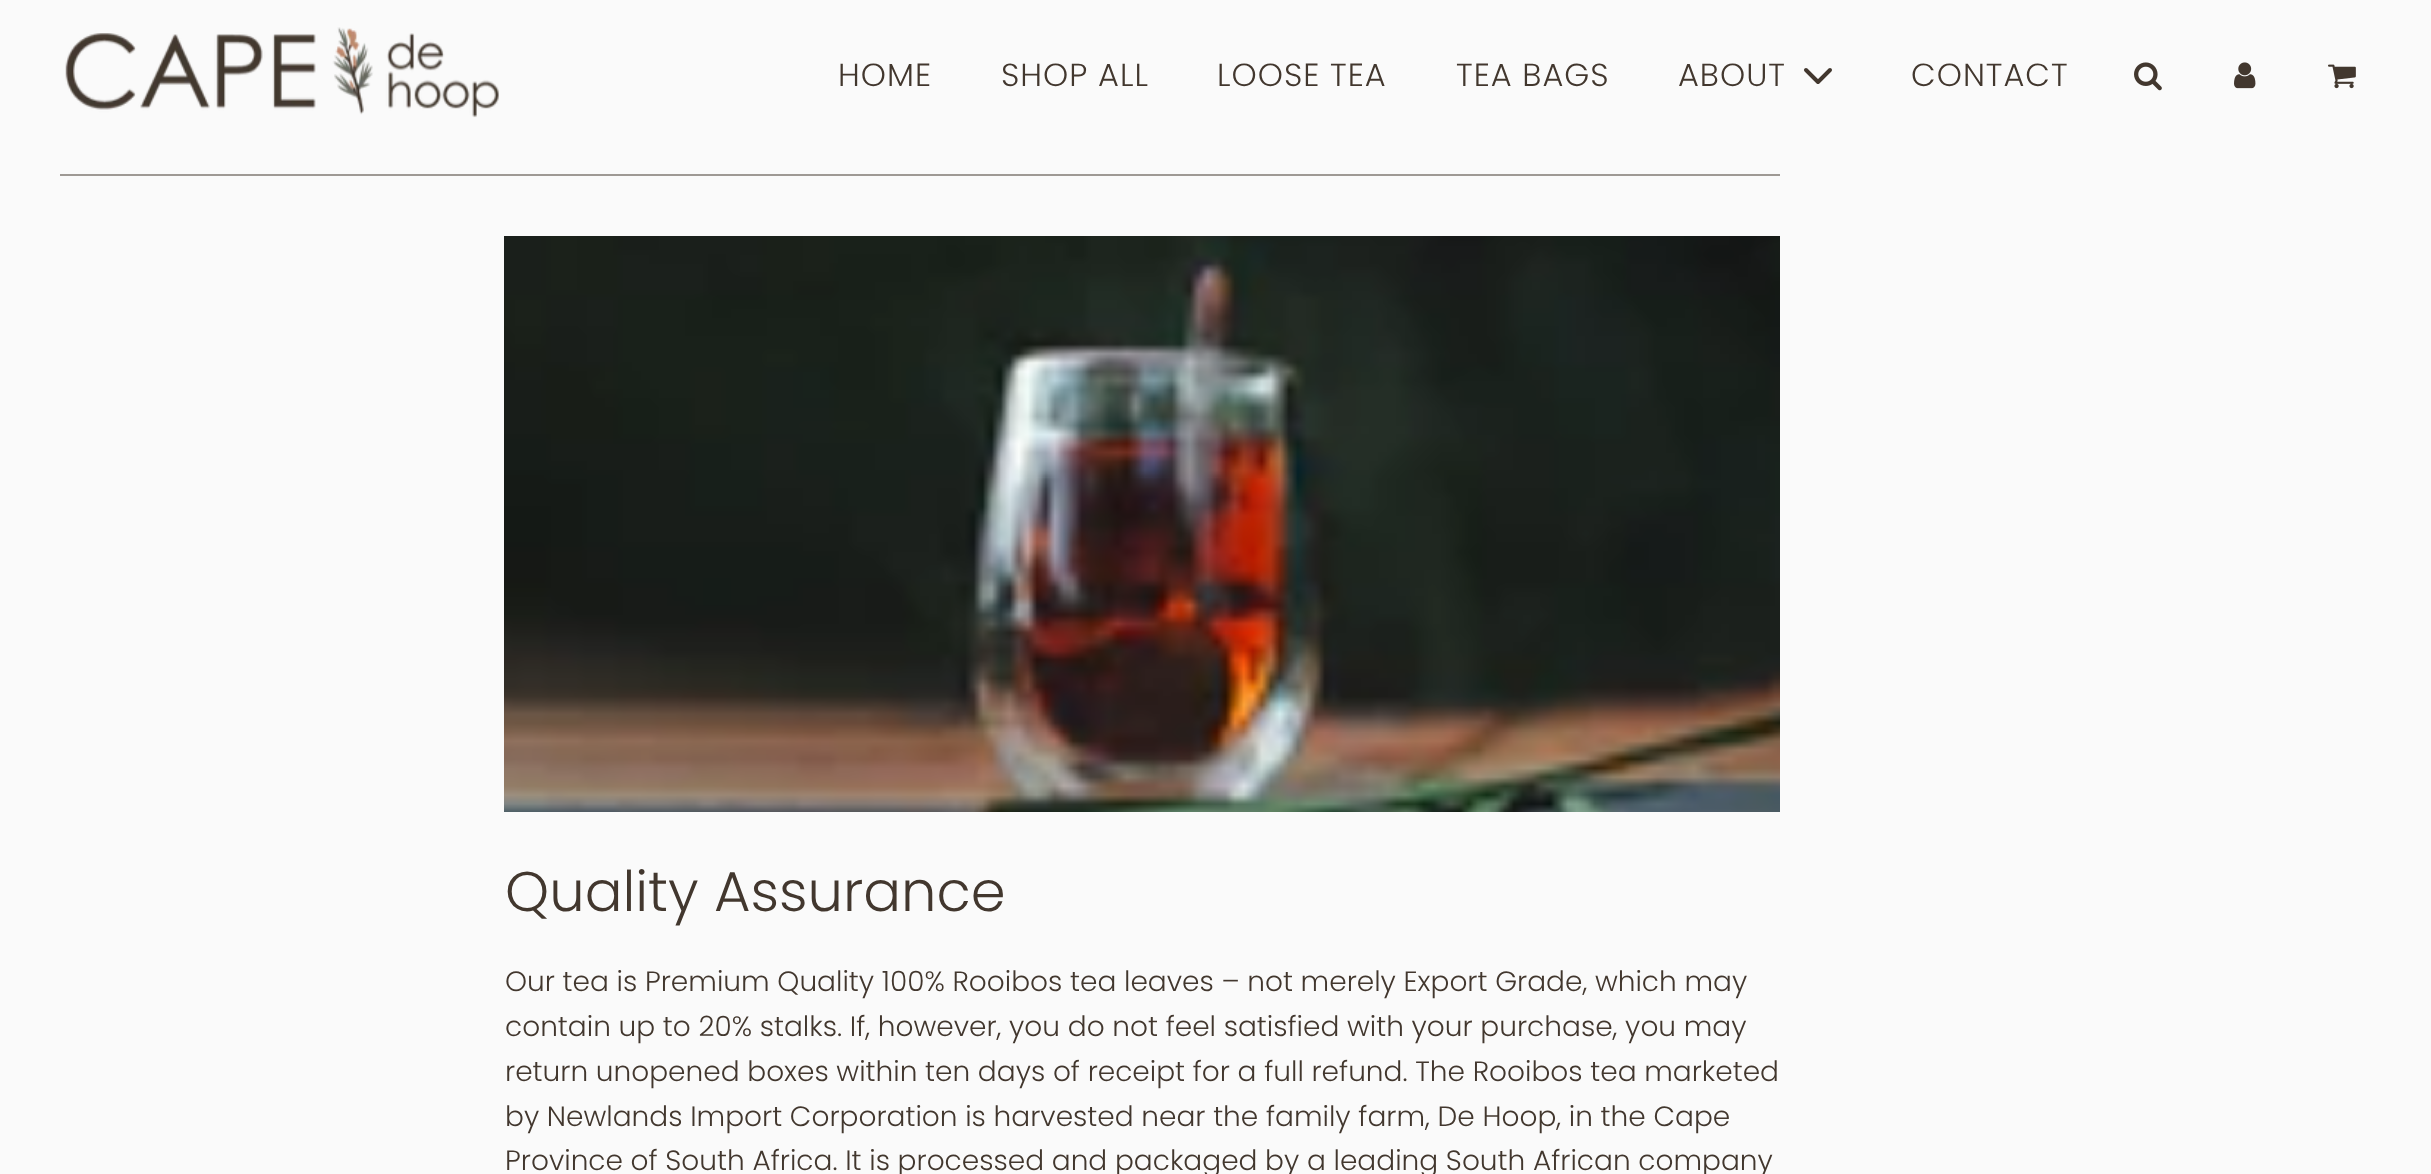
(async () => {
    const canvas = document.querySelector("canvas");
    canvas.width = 2431;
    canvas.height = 1174;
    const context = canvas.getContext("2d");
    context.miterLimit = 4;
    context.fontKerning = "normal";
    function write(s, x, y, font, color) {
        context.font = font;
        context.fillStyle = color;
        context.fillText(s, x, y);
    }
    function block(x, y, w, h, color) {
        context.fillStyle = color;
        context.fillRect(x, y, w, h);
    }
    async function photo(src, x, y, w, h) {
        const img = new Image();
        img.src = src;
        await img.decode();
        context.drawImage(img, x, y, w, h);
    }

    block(0, 0, 2431, 1174, "rgb(250, 250, 250)");
    await photo("media/1.png", 65, 27, 434, 91);
    context.letterSpacing = "1px";
    write("HOME", 838, 86, "300 32px Poppins", "rgb(66, 55, 46)");
    write("SHOP ALL", 1001, 86, "300 32px Poppins", "rgb(66, 55, 46)");
    write("LOOSE TEA", 1217, 86, "300 32px Poppins", "rgb(66, 55, 46)");
    write("TEA BAGS", 1456, 86, "300 32px Poppins", "rgb(66, 55, 46)");
    write("ABOUT", 1678, 86, "300 32px Poppins", "rgb(66, 55, 46)");
    context.beginPath();
    context.moveTo(1806, 70);
    context.lineTo(1818, 82);
    context.lineTo(1830, 70);
    context.strokeStyle = "rgb(66, 55, 46)";
    context.lineWidth = 4;
    context.lineCap = "round";
    context.lineJoin = "round";
    context.stroke();
    write("CONTACT", 1911, 86, "300 32px Poppins", "rgb(66, 55, 46)");
    await photo("media/2.png", 2134, 62, 28, 29);
    await photo("media/3.png", 2234, 62, 22, 27);
    await photo("media/4.png", 2328, 64, 28, 25);
    block(60, 174, 1720, 2, "rgb(158, 153, 148)");
    await photo("media/5.png", 504, 236, 1276, 576);
    context.letterSpacing = "0px";
    write("Quality Assurance", 505, 911, "300 56px Poppins", "rgb(66, 55, 46)");
    write("Our tea is Premium Quality 100% Rooibos tea leaves – not merely Export Grade, which may", 505, 991, "300 28px Poppins", "rgb(66, 55, 46)");
    write("contain up to 20% stalks. If, however, you do not feel satisfied with your purchase, you may", 505, 1036, "300 28px Poppins", "rgb(66, 55, 46)");
    write("return unopened boxes within ten days of receipt for a full refund. The Rooibos tea marketed", 505, 1081, "300 28px Poppins", "rgb(66, 55, 46)");
    write("by Newlands Import Corporation is harvested near the family farm, De Hoop, in the Cape", 505, 1126, "300 28px Poppins", "rgb(66, 55, 46)");
    write("Province of South Africa. It is processed and packaged by a leading South African company", 505, 1170, "300 28px Poppins", "rgb(66, 55, 46)");
})();
